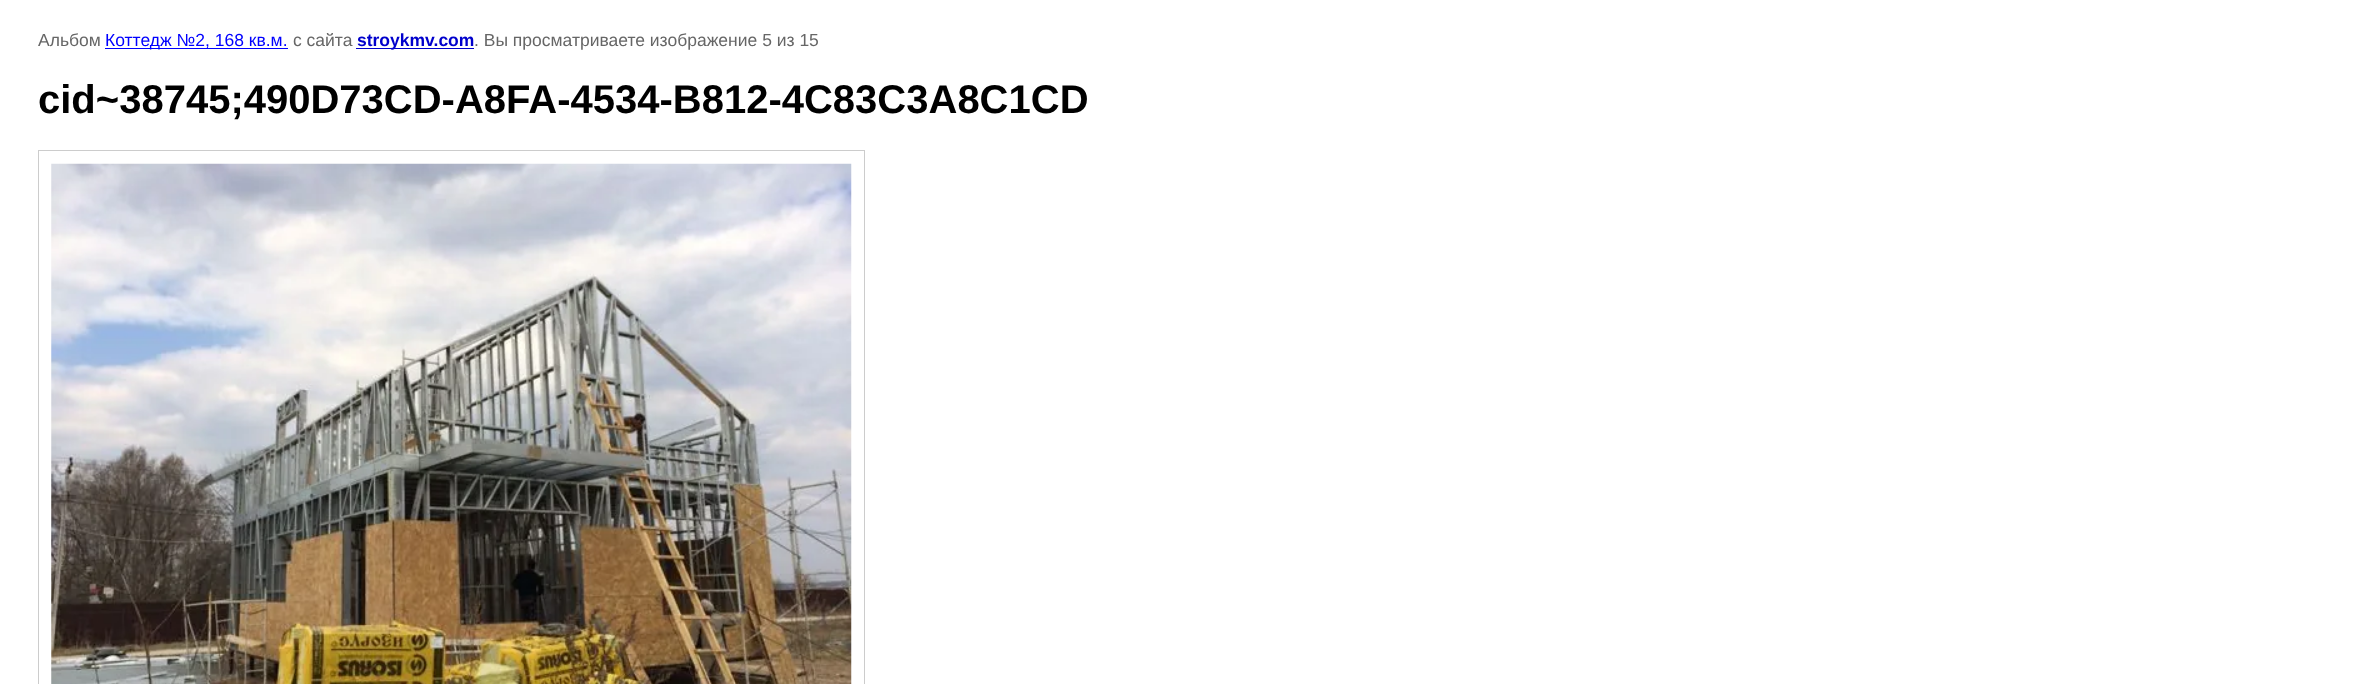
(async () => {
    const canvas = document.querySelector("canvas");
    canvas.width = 2367;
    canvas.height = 684;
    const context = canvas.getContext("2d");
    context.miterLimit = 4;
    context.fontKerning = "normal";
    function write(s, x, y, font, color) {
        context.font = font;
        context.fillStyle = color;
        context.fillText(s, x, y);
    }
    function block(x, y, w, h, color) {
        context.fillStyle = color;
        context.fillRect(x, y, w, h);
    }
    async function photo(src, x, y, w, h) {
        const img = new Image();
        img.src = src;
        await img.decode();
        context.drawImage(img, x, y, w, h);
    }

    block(0, 0, 2367, 684, "rgb(255, 255, 255)");
    write("Альбом", 38, 46, "17.5px Liberation Sans", "rgb(102, 102, 102)");
    block(105, 48, 183, 1, "rgb(0, 0, 255)");
    write("Коттедж №2, 168 кв.м.", 105, 46, "17.5px Liberation Sans", "rgb(0, 0, 255)");
    write("с сайта", 293, 46, "17.5px Liberation Sans", "rgb(102, 102, 102)");
    block(356, 48, 118, 1, "rgb(0, 0, 204)");
    write("stroykmv.com", 357, 46, "bold 17.5px Liberation Sans", "rgb(0, 0, 204)");
    write(". Вы просматриваете изображение 5 из 15", 474, 46, "17.5px Liberation Sans", "rgb(102, 102, 102)");
    write("cid~38745;490D73CD-A8FA-4534-B812-4C83C3A8C1CD", 38, 113, "bold 40px Liberation Sans", "rgb(0, 0, 0)");
    context.strokeStyle = "rgb(204, 204, 204)";
    context.strokeRect(38.5, 150.5, 826, 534);
    await photo("media/1.png", 51, 163, 801, 521);
})();
